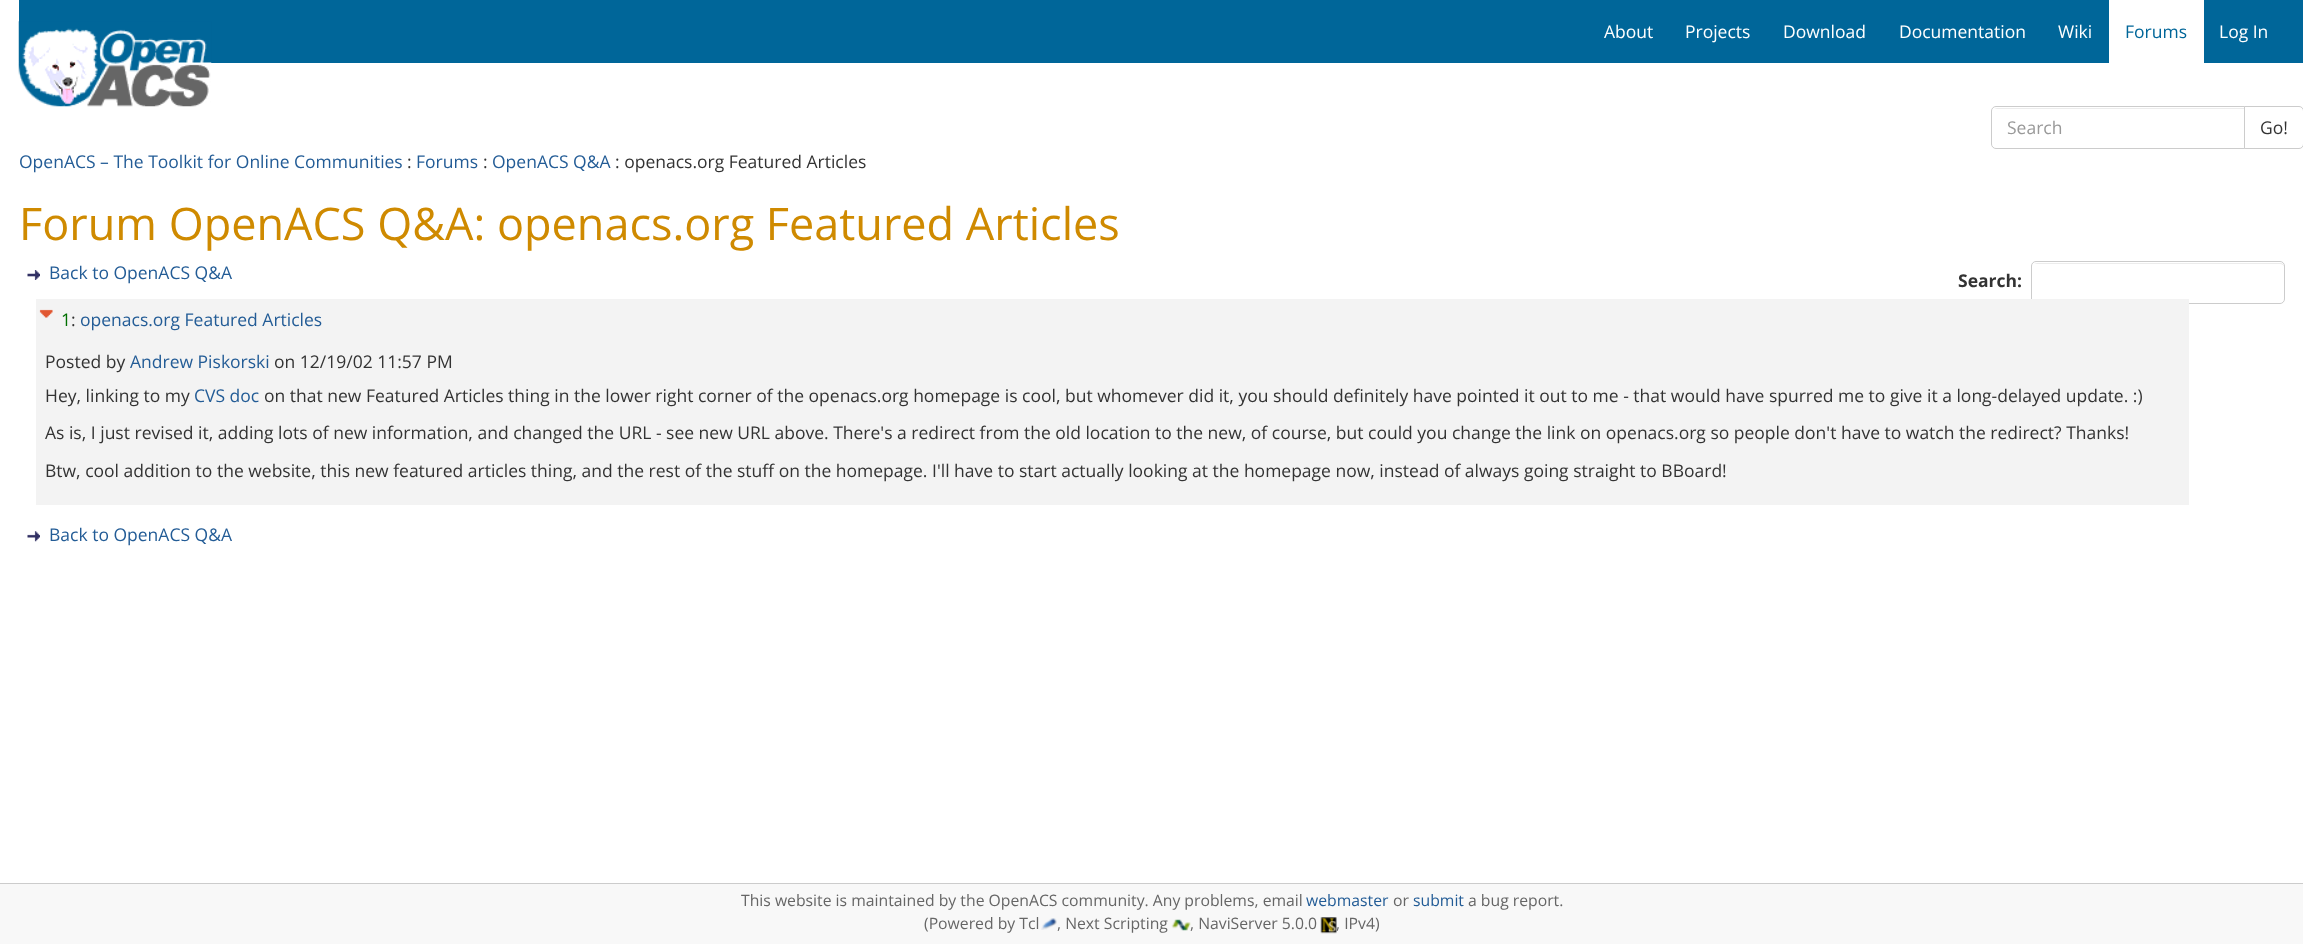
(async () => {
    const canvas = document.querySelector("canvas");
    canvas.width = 2303;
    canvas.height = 944;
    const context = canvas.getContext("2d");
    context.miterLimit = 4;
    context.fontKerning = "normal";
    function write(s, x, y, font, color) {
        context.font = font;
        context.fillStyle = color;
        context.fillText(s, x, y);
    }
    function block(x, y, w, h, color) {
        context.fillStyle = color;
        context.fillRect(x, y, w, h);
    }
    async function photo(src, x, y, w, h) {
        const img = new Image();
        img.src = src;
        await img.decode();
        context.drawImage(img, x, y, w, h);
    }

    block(0, 0, 2303, 944, "rgb(255, 255, 255)");
    block(19, 0, 2284, 63, "rgb(0, 102, 153)");
    await photo("media/1.png", 18, 21, 194, 86);
    write("About", 1604, 38, "17.5px Open Sans", "rgb(255, 255, 255)");
    write("Projects", 1685, 38, "17.5px Open Sans", "rgb(255, 255, 255)");
    write("Download", 1783, 38, "17.5px Open Sans", "rgb(255, 255, 255)");
    write("Documentation", 1899, 38, "17.5px Open Sans", "rgb(255, 255, 255)");
    write("Wiki", 2058, 38, "17.5px Open Sans", "rgb(255, 255, 255)");
    block(2109, 0, 95, 63, "rgb(255, 255, 255)");
    write("Forums", 2125, 38, "17.5px Open Sans", "rgb(0, 102, 153)");
    write("Log In", 2219, 38, "17.5px Open Sans", "rgb(255, 255, 255)");
    context.fillStyle = "rgb(236, 236, 236)";
    context.beginPath();
    context.moveTo(1996, 109);
    context.lineTo(2244, 109);
    context.lineTo(2244, 108);
    context.lineTo(1997, 108);
    context.lineTo(1994, 109);
    context.closePath();
    context.fill();
    context.beginPath();
    context.roundRect(1991.5, 106.5, 253, 42, [4.5, 0, 0, 4.5]);
    context.strokeStyle = "rgb(204, 204, 204)";
    context.stroke();
    write("Search", 2007, 134, "17.5px Open Sans", "rgb(153, 153, 153)");
    context.fillStyle = "rgb(255, 255, 255)";
    context.beginPath();
    context.moveTo(2244.5, 106.5);
    context.lineTo(2299, 106.5);
    context.bezierCurveTo(2301.5, 106.5, 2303.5, 108.5, 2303.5, 111);
    context.lineTo(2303.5, 144);
    context.bezierCurveTo(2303.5, 146.5, 2301.5, 148.5, 2299, 148.5);
    context.lineTo(2244.5, 148.5);
    context.closePath();
    context.fill();
    context.stroke();
    write("Go!", 2260, 134, "17.5px Open Sans", "rgb(51, 51, 51)");
    write("OpenACS – The Toolkit for Online Communities", 19, 168, "17.5px Open Sans", "rgb(35, 92, 150)");
    write(":", 407, 168, "17.5px Open Sans", "rgb(51, 51, 51)");
    write("Forums", 416, 168, "17.5px Open Sans", "rgb(35, 92, 150)");
    write(":", 483, 168, "17.5px Open Sans", "rgb(51, 51, 51)");
    write("OpenACS Q&A", 492, 168, "17.5px Open Sans", "rgb(35, 92, 150)");
    write(": openacs.org Featured Articles", 615, 168, "17.5px Open Sans", "rgb(51, 51, 51)");
    write("Forum OpenACS Q&A: openacs.org Featured Articles", 19, 240, "45px Open Sans", "rgb(207, 138, 0)");
    await photo("media/2.png", 27, 270, 13, 10);
    write("Back to OpenACS Q&A", 49, 279, "17.5px Open Sans", "rgb(35, 92, 150)");
    write("Search:", 1958, 287, "bold 17.5px Open Sans", "rgb(51, 51, 51)");
    context.fillStyle = "rgb(236, 236, 236)";
    context.beginPath();
    context.moveTo(2036, 264);
    context.lineTo(2280, 264);
    context.bezierCurveTo(2282, 264, 2284, 265, 2284, 268);
    context.bezierCurveTo(2284, 265, 2283, 263, 2280, 263);
    context.lineTo(2037, 263);
    context.lineTo(2034, 264);
    context.closePath();
    context.fill();
    context.beginPath();
    context.roundRect(2031.5, 261.5, 253, 42, 4.5);
    context.stroke();
    block(36, 299, 2153, 206, "rgb(243, 243, 243)");
    await photo("media/3.png", 39, 309, 14, 9);
    write("1", 61, 326, "17.5px Open Sans", "rgb(0, 111, 0)");
    write(":", 71, 326, "17.5px Open Sans", "rgb(51, 51, 51)");
    write("openacs.org Featured Articles", 80, 326, "17.5px Open Sans", "rgb(35, 92, 150)");
    write("Posted by", 45, 368, "17.5px Open Sans", "rgb(51, 51, 51)");
    write("Andrew Piskorski", 130, 368, "17.5px Open Sans", "rgb(35, 92, 150)");
    write("on 12/19/02 11:57 PM", 274, 368, "17.5px Open Sans", "rgb(51, 51, 51)");
    write("Hey, linking to my", 45, 402, "17.5px Open Sans", "rgb(51, 51, 51)");
    write("CVS doc", 194, 402, "17.5px Open Sans", "rgb(35, 92, 150)");
    write("on that new Featured Articles thing in the lower right corner of the openacs.org homepage is cool, but whomever did it, you should definitely have pointed it out to me - that would have spurred me to give it a long-delayed update. :)", 264, 402, "17.5px Open Sans", "rgb(51, 51, 51)");
    write("As is, I just revised it, adding lots of new information, and changed the URL - see new URL above. There's a redirect from the old location to the new, of course, but could you change the link on openacs.org so people don't have to watch the redirect? Thanks!", 45, 439, "17.5px Open Sans", "rgb(51, 51, 51)");
    write("Btw, cool addition to the website, this new featured articles thing, and the rest of the stuff on the homepage. I'll have to start actually looking at the homepage now, instead of always going straight to BBoard!", 45, 477, "17.5px Open Sans", "rgb(51, 51, 51)");
    await photo("media/4.png", 27, 531, 13, 11);
    write("Back to OpenACS Q&A", 49, 541, "17.5px Open Sans", "rgb(35, 92, 150)");
    block(0, 884, 2303, 60, "rgb(248, 248, 248)");
    block(0, 883, 2303, 1, "rgb(204, 204, 204)");
    write("This website is maintained by the OpenACS community. Any problems, email", 741, 906, "15.75px Open Sans", "rgb(102, 102, 102)");
    write("webmaster", 1306, 906, "15.75px Open Sans", "rgb(35, 92, 150)");
    write("or", 1393, 906, "15.75px Open Sans", "rgb(102, 102, 102)");
    write("submit", 1413, 906, "15.75px Open Sans", "rgb(35, 92, 150)");
    write("a bug report.", 1468, 906, "15.75px Open Sans", "rgb(102, 102, 102)");
    write("(Powered by Tcl", 924, 929, "15.75px Open Sans", "rgb(102, 102, 102)");
    await photo("media/5.png", 1041, 918, 16, 12);
    write(", Next Scripting", 1057, 929, "15.75px Open Sans", "rgb(102, 102, 102)");
    await photo("media/6.png", 1171, 919, 20, 12);
    write(", NaviServer 5.0.0", 1190, 929, "15.75px Open Sans", "rgb(102, 102, 102)");
    await photo("media/7.png", 1320, 917, 17, 17);
    write(", IPv4)", 1336, 929, "15.75px Open Sans", "rgb(102, 102, 102)");
})();
